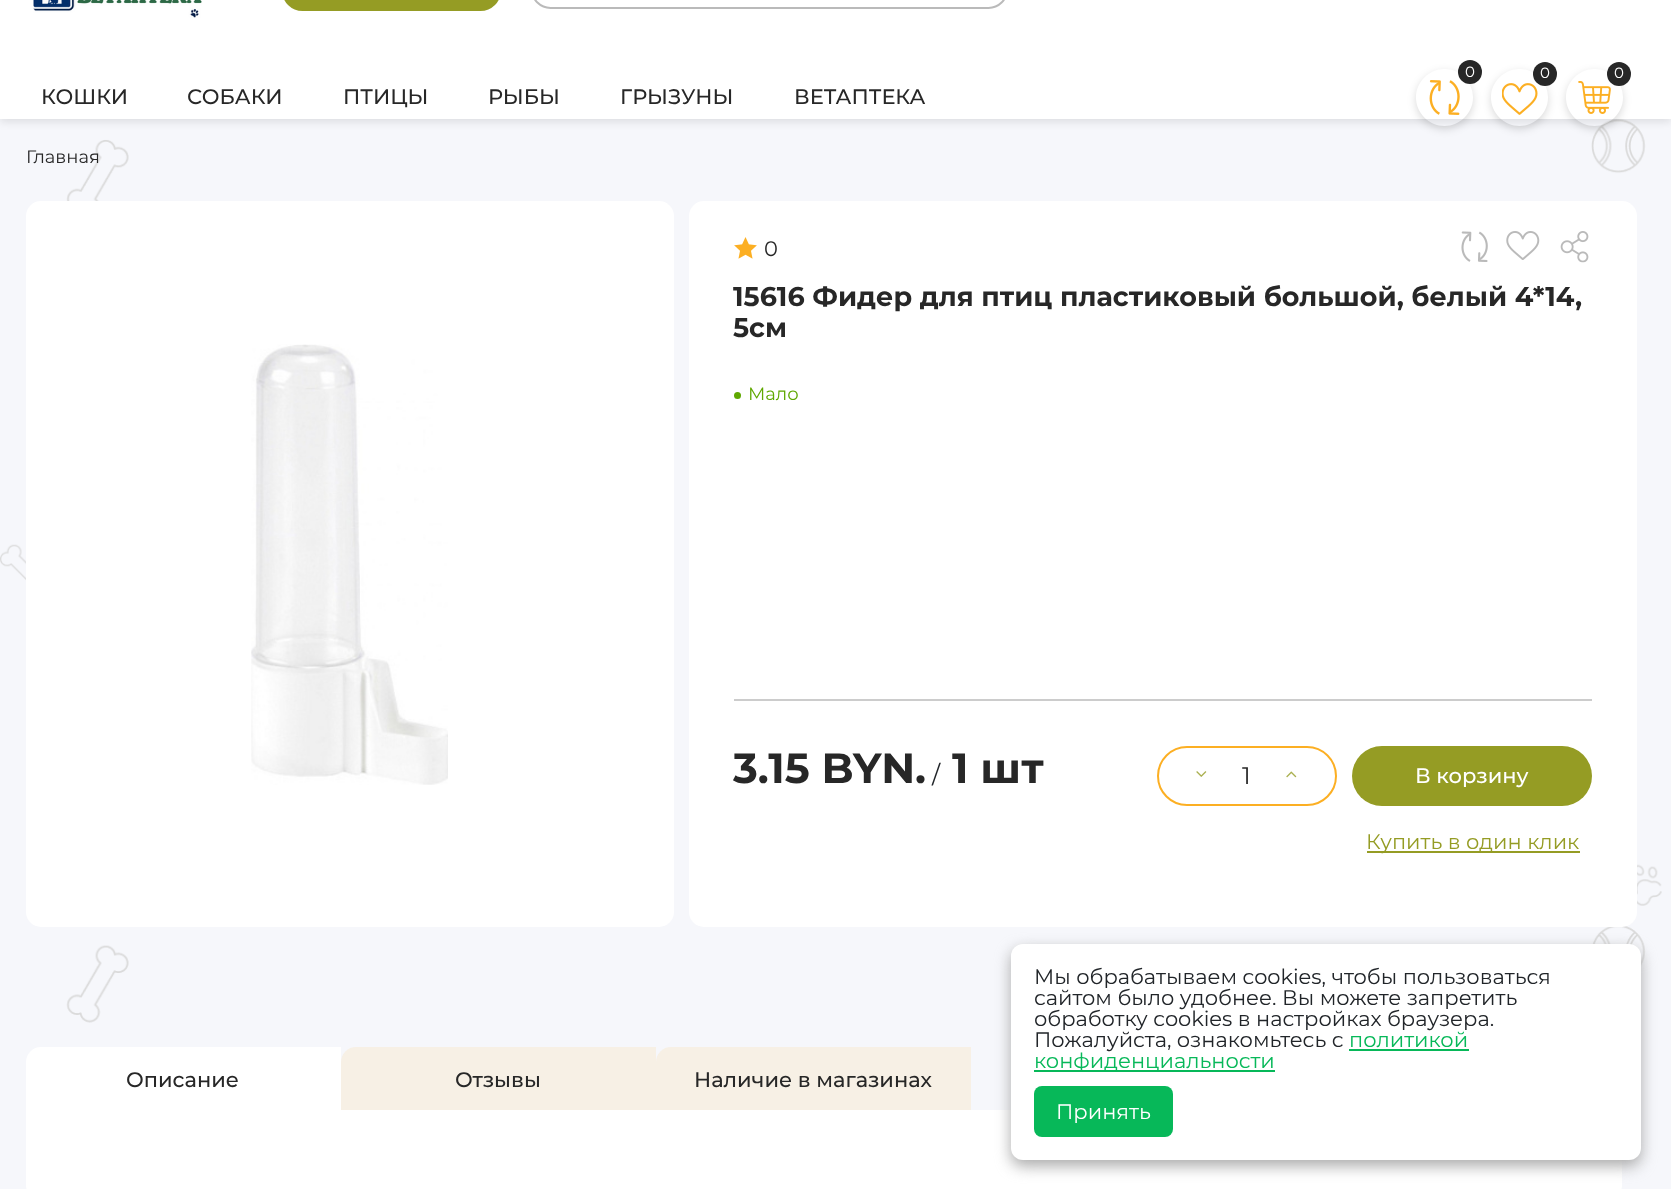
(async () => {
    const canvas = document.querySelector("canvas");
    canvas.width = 1671;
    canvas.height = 1189;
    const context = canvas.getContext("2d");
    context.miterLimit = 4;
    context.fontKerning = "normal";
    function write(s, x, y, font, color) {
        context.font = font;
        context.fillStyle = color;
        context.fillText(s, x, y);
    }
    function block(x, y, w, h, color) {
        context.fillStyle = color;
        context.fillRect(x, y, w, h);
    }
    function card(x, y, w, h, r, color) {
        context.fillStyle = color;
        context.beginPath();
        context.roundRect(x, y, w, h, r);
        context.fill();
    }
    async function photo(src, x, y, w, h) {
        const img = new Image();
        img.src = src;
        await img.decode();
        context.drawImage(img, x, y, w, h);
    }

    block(0, 0, 1671, 1189, "rgb(246, 247, 251)");
    await photo("media/5.png", 0, 119, 1662, 904);
    context.fillStyle = "rgba(0, 0, 0, 0.1)";
    context.filter = "blur(4.5px)";
    context.beginPath();
    context.rect(0, -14, 1671, 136);
    context.fill();
    context.filter = "none";
    block(0, 0, 1671, 119, "rgb(255, 255, 255)");
    await photo("media/1.png", 33, 0, 169, 18);
    card(282, -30, 219, 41, 30, "rgb(149, 156, 36)");
    context.beginPath();
    context.roundRect(532, -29, 475, 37, 26.5);
    context.strokeStyle = "rgb(186, 186, 186)";
    context.lineWidth = 2;
    context.stroke();
    context.save();
    context.beginPath();
    context.moveTo(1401, 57);
    context.lineTo(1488, 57);
    context.lineTo(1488, 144);
    context.lineTo(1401, 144);
    context.closePath();
    context.moveTo(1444.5, 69);
    context.bezierCurveTo(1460, 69, 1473, 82, 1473, 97.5);
    context.bezierCurveTo(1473, 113, 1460, 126, 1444.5, 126);
    context.bezierCurveTo(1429, 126, 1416, 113, 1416, 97.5);
    context.bezierCurveTo(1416, 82, 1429, 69, 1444.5, 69);
    context.closePath();
    context.clip("evenodd");
    context.fillStyle = "rgba(0, 0, 0, 0.15)";
    context.filter = "blur(4.5px)";
    context.beginPath();
    context.roundRect(1416, 72, 57, 57, 28.5);
    context.fill();
    context.filter = "none";
    context.restore();
    await photo("media/2.png", 1429, 80, 31, 35);
    context.save();
    context.beginPath();
    context.moveTo(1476, 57);
    context.lineTo(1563, 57);
    context.lineTo(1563, 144);
    context.lineTo(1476, 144);
    context.closePath();
    context.moveTo(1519.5, 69);
    context.bezierCurveTo(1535, 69, 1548, 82, 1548, 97.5);
    context.bezierCurveTo(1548, 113, 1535, 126, 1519.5, 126);
    context.bezierCurveTo(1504, 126, 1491, 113, 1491, 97.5);
    context.bezierCurveTo(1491, 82, 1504, 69, 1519.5, 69);
    context.closePath();
    context.clip("evenodd");
    context.fillStyle = "rgba(0, 0, 0, 0.15)";
    context.filter = "blur(4.5px)";
    context.beginPath();
    context.roundRect(1491, 72, 57, 57, 28.5);
    context.fill();
    context.filter = "none";
    context.restore();
    context.fillStyle = "rgb(39, 39, 39)";
    context.beginPath();
    context.arc(1470, 72, 12, 0, Math.PI * 2);
    context.fill();
    write("0", 1465, 77, "15px Montserrat", "rgb(255, 255, 255)");
    await photo("media/3.png", 1502, 83, 36, 32);
    context.save();
    context.beginPath();
    context.moveTo(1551, 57);
    context.lineTo(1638, 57);
    context.lineTo(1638, 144);
    context.lineTo(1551, 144);
    context.closePath();
    context.moveTo(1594.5, 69);
    context.bezierCurveTo(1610, 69, 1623, 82, 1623, 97.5);
    context.bezierCurveTo(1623, 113, 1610, 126, 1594.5, 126);
    context.bezierCurveTo(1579, 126, 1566, 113, 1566, 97.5);
    context.bezierCurveTo(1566, 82, 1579, 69, 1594.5, 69);
    context.closePath();
    context.clip("evenodd");
    context.fillStyle = "rgba(0, 0, 0, 0.15)";
    context.filter = "blur(4.5px)";
    context.beginPath();
    context.roundRect(1566, 72, 57, 57, 28.5);
    context.fill();
    context.filter = "none";
    context.restore();
    context.fillStyle = "rgb(39, 39, 39)";
    context.beginPath();
    context.arc(1545, 74, 12, 0, Math.PI * 2);
    context.fill();
    write("0", 1540, 78, "15px Montserrat", "rgb(255, 255, 255)");
    await photo("media/4.png", 1578, 81, 33, 33);
    context.fillStyle = "rgb(39, 39, 39)";
    context.beginPath();
    context.arc(1619, 74, 12, 0, Math.PI * 2);
    context.fill();
    write("0", 1614, 78, "15px Montserrat", "rgb(255, 255, 255)");
    write("КОШКИ", 41, 104, "500 21px Montserrat", "rgb(39, 39, 39)");
    write("СОБАКИ", 187, 104, "500 21px Montserrat", "rgb(39, 39, 39)");
    write("ПТИЦЫ", 343, 104, "500 21px Montserrat", "rgb(39, 39, 39)");
    write("РЫБЫ", 488, 104, "500 21px Montserrat", "rgb(39, 39, 39)");
    write("ГРЫЗУНЫ", 620, 104, "500 21px Montserrat", "rgb(39, 39, 39)");
    write("ВЕТАПТЕКА", 794, 104, "500 21px Montserrat", "rgb(39, 39, 39)");
    write("Главная", 26, 163, "18px Montserrat", "rgb(39, 39, 39)");
    card(26, 201, 648, 726, 15, "rgb(255, 255, 255)");
    await photo("media/6.png", 251, 344, 197, 441);
    card(689, 201, 948, 726, 15, "rgb(255, 255, 255)");
    await photo("media/7.png", 734, 237, 23, 22);
    write("0", 764, 256, "21px Montserrat", "rgb(39, 39, 39)");
    await photo("media/8.png", 1461, 231, 27, 31);
    await photo("media/9.png", 1506, 231, 34, 29);
    await photo("media/10.png", 1560, 231, 29, 32);
    write("15616 Фидер для птиц пластиковый большой, белый 4*14,", 733, 306, "bold 27px Montserrat", "rgb(39, 39, 39)");
    write("5см", 733, 337, "bold 27px Montserrat", "rgb(39, 39, 39)");
    context.fillStyle = "rgb(95, 168, 0)";
    context.beginPath();
    context.arc(737.5, 395.5, 3.5, 0, Math.PI * 2);
    context.fill();
    write("Мало", 748, 400, "18px Montserrat", "rgb(95, 168, 0)");
    block(734, 699, 858, 2, "rgb(204, 204, 204)");
    write("3.15 BYN.", 733, 783, "bold 42px Montserrat", "rgb(39, 39, 39)");
    write("/", 932, 783, "24px Montserrat", "rgb(33, 37, 41)");
    write("1 шт", 952, 783, "bold 42px Montserrat", "rgb(39, 39, 39)");
    context.beginPath();
    context.roundRect(1158, 747, 178, 58, 29);
    context.strokeStyle = "rgb(252, 175, 35)";
    context.stroke();
    await photo("media/11.png", 1196, 771, 11, 6);
    write("1", 1242, 784, "24px Montserrat", "rgb(39, 39, 39)");
    await photo("media/12.png", 1286, 771, 11, 7);
    card(1352, 746, 240, 60, 30, "rgb(149, 156, 36)");
    write("В корзину", 1415, 783, "500 21px Montserrat", "rgb(255, 255, 255)");
    block(1367, 851, 213, 2, "rgb(149, 156, 36)");
    write("Купить в один клик", 1366, 849, "21px Montserrat", "rgb(149, 156, 36)");
    context.fillStyle = "rgb(255, 255, 255)";
    context.beginPath();
    context.roundRect(26, 1047, 315, 63, [15, 0, 0, 0]);
    context.fill();
    write("Описание", 126, 1087, "500 21px Montserrat", "rgb(39, 39, 39)");
    context.fillStyle = "rgb(247, 240, 229)";
    context.beginPath();
    context.roundRect(341, 1047, 315, 63, [15, 0, 0, 0]);
    context.fill();
    write("Отзывы", 455, 1087, "500 21px Montserrat", "rgb(39, 39, 39)");
    context.fillStyle = "rgb(247, 240, 229)";
    context.beginPath();
    context.roundRect(656, 1047, 315, 63, [15, 0, 0, 0]);
    context.fill();
    write("Наличие в магазинах", 694, 1087, "500 21px Montserrat", "rgb(39, 39, 39)");
    context.fillStyle = "rgb(255, 255, 255)";
    context.beginPath();
    context.moveTo(26, 1110);
    context.lineTo(1622, 1110);
    context.lineTo(1622, 1185);
    context.bezierCurveTo(1622, 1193.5, 1615.5, 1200, 1607, 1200);
    context.lineTo(41, 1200);
    context.bezierCurveTo(32.5, 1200, 26, 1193.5, 26, 1185);
    context.closePath();
    context.fill();
    context.fillStyle = "rgb(170, 170, 170)";
    context.filter = "blur(7.5px)";
    context.beginPath();
    context.roundRect(1011, 950, 630, 216, 12);
    context.fill();
    context.filter = "none";
    card(1011, 944, 630, 216, 12, "rgb(255, 255, 255)");
    write("Мы обрабатываем cookies, чтобы пользоваться", 1034, 984, "21px Montserrat", "rgb(33, 37, 41)");
    write("сайтом было удобнее. Вы можете запретить", 1034, 1005, "21px Montserrat", "rgb(33, 37, 41)");
    write("обработку cookies в настройках браузера.", 1034, 1026, "21px Montserrat", "rgb(33, 37, 41)");
    write("Пожалуйста, ознакомьтесь с", 1034, 1047, "21px Montserrat", "rgb(33, 37, 41)");
    write("политикой", 1349, 1047, "21px Montserrat", "rgb(7, 184, 89)");
    block(1349, 1049, 120, 2, "rgb(7, 184, 89)");
    block(1034, 1070, 241, 2, "rgb(7, 184, 89)");
    write("конфиденциальности", 1034, 1068, "21px Montserrat", "rgb(7, 184, 89)");
    card(1034, 1086, 139, 51, 8, "rgb(7, 184, 89)");
    write("Принять", 1056, 1119, "21px Montserrat", "rgb(255, 255, 255)");
})();
